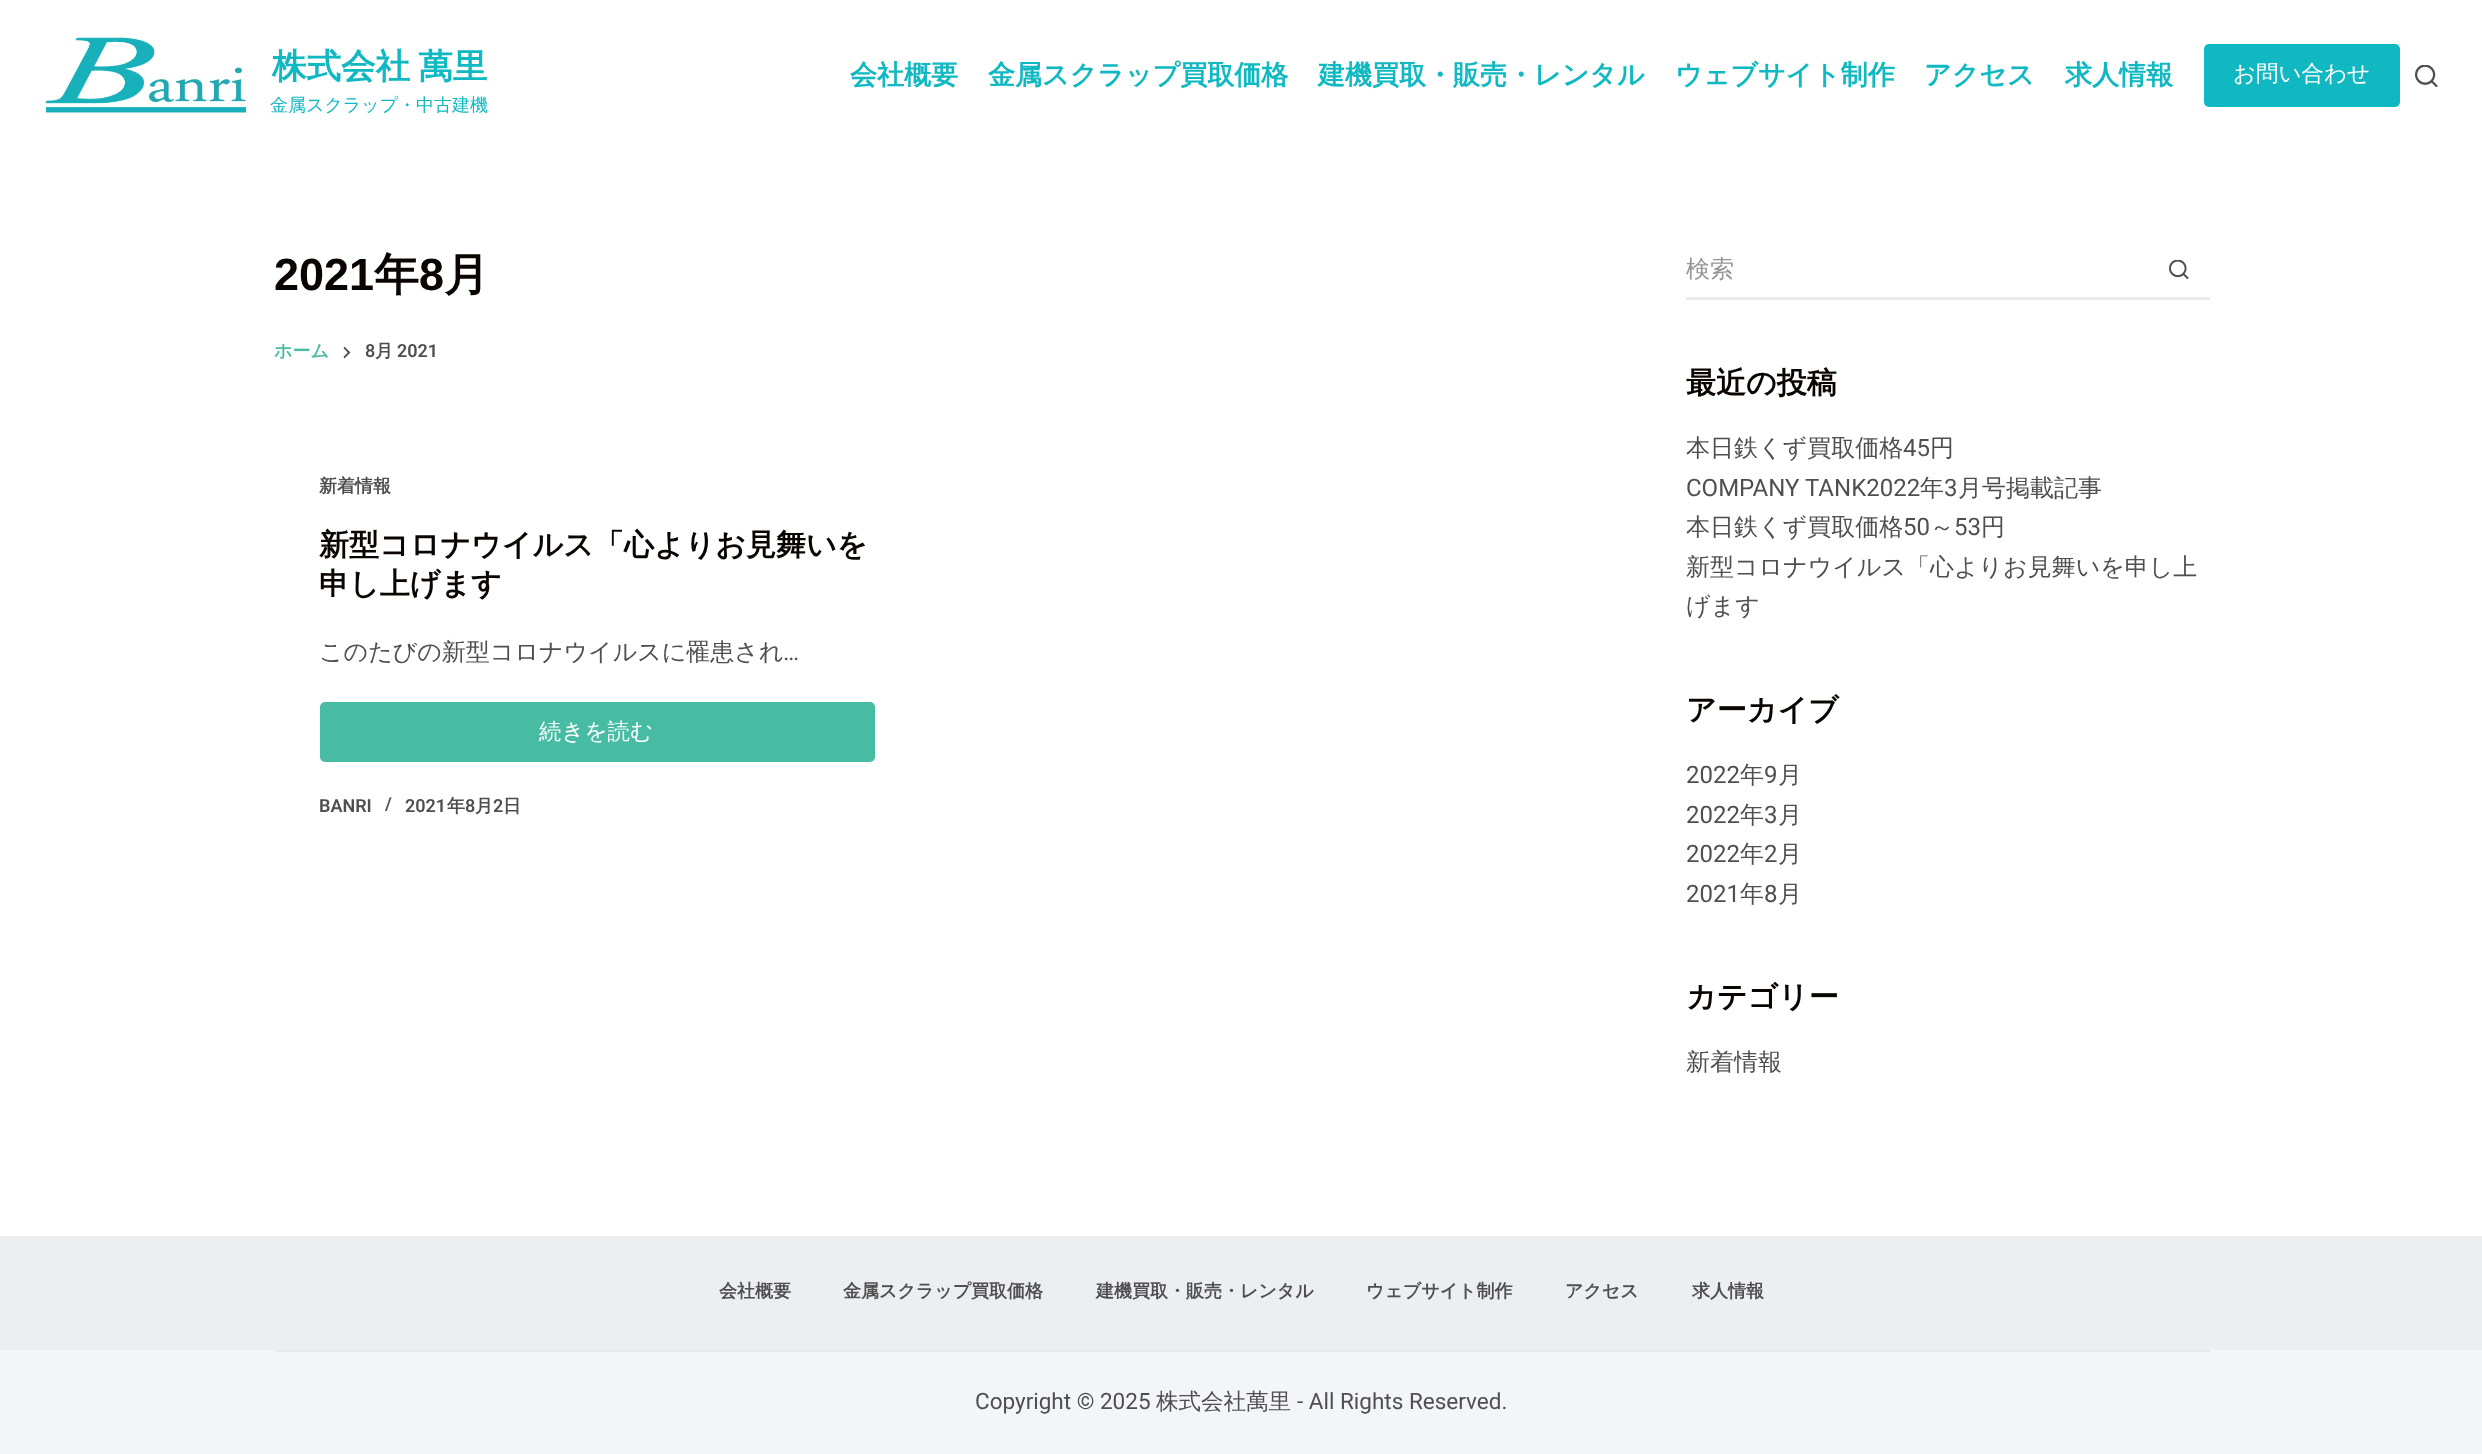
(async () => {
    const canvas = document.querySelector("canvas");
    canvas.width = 2482;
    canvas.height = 1454;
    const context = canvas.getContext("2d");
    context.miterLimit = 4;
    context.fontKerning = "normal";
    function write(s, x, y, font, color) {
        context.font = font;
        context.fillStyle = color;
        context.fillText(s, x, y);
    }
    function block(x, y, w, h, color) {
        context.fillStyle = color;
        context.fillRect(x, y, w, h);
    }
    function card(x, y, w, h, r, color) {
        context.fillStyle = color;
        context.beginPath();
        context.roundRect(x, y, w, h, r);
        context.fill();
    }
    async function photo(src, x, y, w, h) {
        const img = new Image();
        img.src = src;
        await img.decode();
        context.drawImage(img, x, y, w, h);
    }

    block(0, 0, 2482, 1454, "rgb(255, 255, 255)");
    await photo("media/1.png", 45, 37, 201, 76);
    context.wordSpacing = "-2px";
    write("株式会社 萬里", 272, 78, "bold 34.5px WenQuanYi Zen Hei", "rgb(16, 184, 193)");
    context.wordSpacing = "0px";
    write("金属スクラップ・中古建機", 270, 111, "500 18px WenQuanYi Zen Hei", "rgb(16, 184, 193)");
    write("会社概要", 850, 84, "bold 27px WenQuanYi Zen Hei", "rgb(16, 184, 193)");
    write("金属スクラップ買取価格", 988, 84, "bold 27px WenQuanYi Zen Hei", "rgb(16, 184, 193)");
    write("建機買取・販売・レンタル", 1318, 84, "bold 27px WenQuanYi Zen Hei", "rgb(16, 184, 193)");
    write("ウェブサイト制作", 1675, 84, "bold 27px WenQuanYi Zen Hei", "rgb(16, 184, 193)");
    write("アクセス", 1924, 84, "bold 27px WenQuanYi Zen Hei", "rgb(16, 184, 193)");
    write("求人情報", 2065, 84, "bold 27px WenQuanYi Zen Hei", "rgb(16, 184, 193)");
    card(2204, 44, 196, 63, 5, "rgb(16, 184, 193)");
    write("お問い合わせ", 2233, 81, "500 22.5px WenQuanYi Zen Hei", "rgb(255, 255, 255)");
    await photo("media/2.png", 2415, 65, 23, 22);
    write("2021", 274, 290, "bold 45px Liberation Sans", "rgb(10, 5, 0)");
    write("年", 374, 290, "bold 45px WenQuanYi Zen Hei", "rgb(10, 5, 0)");
    write("8", 419, 290, "bold 45px Liberation Sans", "rgb(10, 5, 0)");
    write("月", 444, 290, "bold 45px WenQuanYi Zen Hei", "rgb(10, 5, 0)");
    write("ホーム", 274, 357, "bold 18px WenQuanYi Zen Hei", "rgb(72, 188, 162)");
    await photo("media/3.png", 343, 347, 8, 12);
    write("8", 365, 357, "600 18px Roboto", "rgb(79, 79, 79)");
    write("月", 375, 357, "bold 18px WenQuanYi Zen Hei", "rgb(79, 79, 79)");
    write("2021", 397, 357, "600 18px Roboto", "rgb(79, 79, 79)");
    write("新着情報", 319, 492, "bold 18px WenQuanYi Zen Hei", "rgb(79, 79, 79)");
    write("新型コロナウイルス「心よりお見舞いを", 319, 555, "bold 30px WenQuanYi Zen Hei", "rgb(10, 5, 0)");
    write("申し上げます", 319, 594, "bold 30px WenQuanYi Zen Hei", "rgb(10, 5, 0)");
    write("このたびの新型コロナウイルスに罹患され", 319, 660, "500 24px WenQuanYi Zen Hei", "rgb(79, 79, 79)");
    write("…", 783, 660, "24px Roboto", "rgb(79, 79, 79)");
    card(320, 702, 555, 60, 5, "rgb(72, 188, 162)");
    write("続きを読む", 539, 739, "500 22.5px WenQuanYi Zen Hei", "rgb(255, 255, 255)");
    write("BANRI", 319, 812, "600 18px Roboto", "rgb(79, 79, 79)");
    write("/", 385, 810, "600 18px Roboto", "rgb(79, 79, 79)");
    write("2021", 405, 812, "600 18px Roboto", "rgb(79, 79, 79)");
    write("年", 447, 812, "bold 18px WenQuanYi Zen Hei", "rgb(79, 79, 79)");
    write("8", 465, 812, "600 18px Roboto", "rgb(79, 79, 79)");
    write("月", 475, 812, "bold 18px WenQuanYi Zen Hei", "rgb(79, 79, 79)");
    write("2", 493, 812, "600 18px Roboto", "rgb(79, 79, 79)");
    write("日", 503, 812, "bold 18px WenQuanYi Zen Hei", "rgb(79, 79, 79)");
    block(1686, 297, 524, 3, "rgb(235, 235, 235)");
    write("検索", 1686, 277, "500 24px WenQuanYi Zen Hei", "rgb(149, 149, 149)");
    await photo("media/4.png", 2169, 260, 20, 19);
    write("最近の投稿", 1686, 393, "bold 30px WenQuanYi Zen Hei", "rgb(10, 5, 0)");
    write("本日鉄くず買取価格", 1686, 456, "500 24px WenQuanYi Zen Hei", "rgb(79, 79, 79)");
    write("45", 1903, 456, "24px Roboto", "rgb(79, 79, 79)");
    write("円", 1930, 456, "500 24px WenQuanYi Zen Hei", "rgb(79, 79, 79)");
    write("COMPANY TANK2022", 1686, 496, "24px Roboto", "rgb(79, 79, 79)");
    write("年", 1920, 496, "500 24px WenQuanYi Zen Hei", "rgb(79, 79, 79)");
    write("3", 1944, 496, "24px Roboto", "rgb(79, 79, 79)");
    write("月号掲載記事", 1958, 496, "500 24px WenQuanYi Zen Hei", "rgb(79, 79, 79)");
    write("本日鉄くず買取価格", 1686, 535, "500 24px WenQuanYi Zen Hei", "rgb(79, 79, 79)");
    write("50", 1903, 535, "24px Roboto", "rgb(79, 79, 79)");
    write("～", 1930, 535, "500 24px WenQuanYi Zen Hei", "rgb(79, 79, 79)");
    write("53", 1954, 535, "24px Roboto", "rgb(79, 79, 79)");
    write("円", 1981, 535, "500 24px WenQuanYi Zen Hei", "rgb(79, 79, 79)");
    write("新型コロナウイルス「心よりお見舞いを申し上", 1686, 575, "500 24px WenQuanYi Zen Hei", "rgb(79, 79, 79)");
    write("げます", 1686, 614, "500 24px WenQuanYi Zen Hei", "rgb(79, 79, 79)");
    write("アーカイブ", 1686, 720, "bold 30px WenQuanYi Zen Hei", "rgb(10, 5, 0)");
    write("2022", 1686, 783, "24px Roboto", "rgb(79, 79, 79)");
    write("年", 1740, 783, "500 24px WenQuanYi Zen Hei", "rgb(79, 79, 79)");
    write("9", 1764, 783, "24px Roboto", "rgb(79, 79, 79)");
    write("月", 1778, 783, "500 24px WenQuanYi Zen Hei", "rgb(79, 79, 79)");
    write("2022", 1686, 823, "24px Roboto", "rgb(79, 79, 79)");
    write("年", 1740, 823, "500 24px WenQuanYi Zen Hei", "rgb(79, 79, 79)");
    write("3", 1764, 823, "24px Roboto", "rgb(79, 79, 79)");
    write("月", 1778, 823, "500 24px WenQuanYi Zen Hei", "rgb(79, 79, 79)");
    write("2022", 1686, 862, "24px Roboto", "rgb(79, 79, 79)");
    write("年", 1740, 862, "500 24px WenQuanYi Zen Hei", "rgb(79, 79, 79)");
    write("2", 1764, 862, "24px Roboto", "rgb(79, 79, 79)");
    write("月", 1778, 862, "500 24px WenQuanYi Zen Hei", "rgb(79, 79, 79)");
    write("2021", 1686, 902, "24px Roboto", "rgb(79, 79, 79)");
    write("年", 1740, 902, "500 24px WenQuanYi Zen Hei", "rgb(79, 79, 79)");
    write("8", 1764, 902, "24px Roboto", "rgb(79, 79, 79)");
    write("月", 1778, 902, "500 24px WenQuanYi Zen Hei", "rgb(79, 79, 79)");
    write("カテゴリー", 1686, 1007, "bold 30px WenQuanYi Zen Hei", "rgb(10, 5, 0)");
    write("新着情報", 1686, 1070, "500 24px WenQuanYi Zen Hei", "rgb(79, 79, 79)");
    block(0, 1350, 2482, 104, "rgb(244, 245, 248)");
    block(0, 1236, 2482, 114, "rgb(236, 238, 241)");
    write("会社概要", 719, 1297, "bold 18px WenQuanYi Zen Hei", "rgb(79, 79, 79)");
    write("金属スクラップ買取価格", 843, 1297, "bold 18px WenQuanYi Zen Hei", "rgb(79, 79, 79)");
    write("建機買取・販売・レンタル", 1096, 1297, "bold 18px WenQuanYi Zen Hei", "rgb(79, 79, 79)");
    write("ウェブサイト制作", 1366, 1297, "bold 18px WenQuanYi Zen Hei", "rgb(79, 79, 79)");
    write("アクセス", 1565, 1297, "bold 18px WenQuanYi Zen Hei", "rgb(79, 79, 79)");
    write("求人情報", 1692, 1297, "bold 18px WenQuanYi Zen Hei", "rgb(79, 79, 79)");
    block(275, 1350, 1935, 2, "rgb(232, 232, 232)");
    write("Copyright © 2025", 975, 1409, "22.5px Roboto", "rgb(79, 79, 79)");
    write("株式会社萬里", 1156, 1409, "500 22.5px WenQuanYi Zen Hei", "rgb(79, 79, 79)");
    write("- All Rights Reserved.", 1297, 1409, "22.5px Roboto", "rgb(79, 79, 79)");
})();
